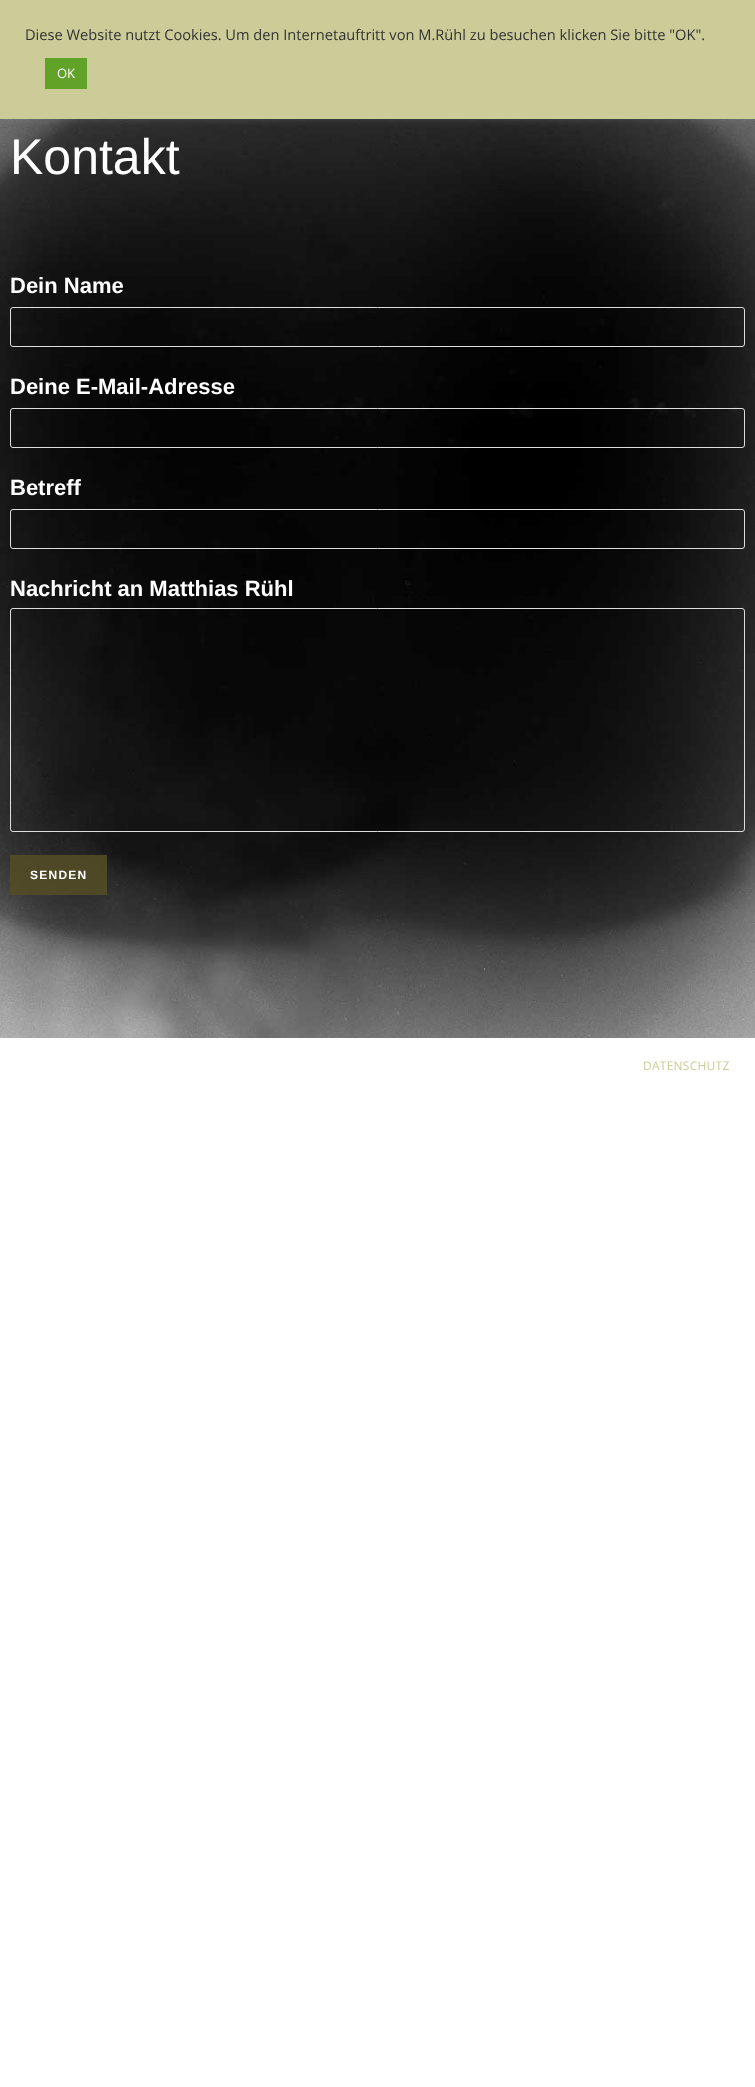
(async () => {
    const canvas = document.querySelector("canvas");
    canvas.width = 755;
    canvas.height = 2087;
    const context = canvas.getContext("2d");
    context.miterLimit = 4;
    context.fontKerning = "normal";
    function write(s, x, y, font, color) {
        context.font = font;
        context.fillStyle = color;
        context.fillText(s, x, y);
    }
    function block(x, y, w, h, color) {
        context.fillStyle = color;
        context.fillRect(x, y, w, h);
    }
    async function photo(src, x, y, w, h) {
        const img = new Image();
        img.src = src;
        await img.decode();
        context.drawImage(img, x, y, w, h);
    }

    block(0, 0, 755, 2087, "rgb(255, 255, 255)");
    await photo("media/1.png", 0, 119, 755, 919);
    context.fillStyle = "rgba(172, 171, 171, 0.3)";
    context.filter = "blur(5px)";
    context.beginPath();
    context.rect(0, -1, 755, 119);
    context.fill();
    context.filter = "none";
    block(0, 0, 755, 119, "rgb(204, 204, 153)");
    write("Diese Website nutzt Cookies. Um den Internetauftritt von M.Rühl zu besuchen klicken Sie bitte \"OK\".", 25, 40, "14.65px Open Sans", "rgb(51, 51, 51)");
    block(45, 58, 42, 31, "rgb(97, 162, 41)");
    write("OK", 57, 78, "13px Open Sans", "rgb(255, 255, 255)");
    write("Kontakt", 10, 174, "50px Liberation Sans", "rgb(255, 255, 255)");
    write("Dein Name", 10, 293, "bold 22px Liberation Sans", "rgb(255, 255, 255)");
    context.beginPath();
    context.roundRect(10.5, 307.5, 734, 39, 2.5);
    context.strokeStyle = "rgb(221, 221, 221)";
    context.stroke();
    write("Deine E-Mail-Adresse", 10, 394, "bold 22px Liberation Sans", "rgb(255, 255, 255)");
    context.beginPath();
    context.roundRect(10.5, 408.5, 734, 39, 2.5);
    context.stroke();
    write("Betreff", 10, 495, "bold 22px Liberation Sans", "rgb(255, 255, 255)");
    context.beginPath();
    context.roundRect(10.5, 509.5, 734, 39, 2.5);
    context.stroke();
    write("Nachricht an Matthias Rühl", 10, 596, "bold 22px Liberation Sans", "rgb(255, 255, 255)");
    context.beginPath();
    context.roundRect(10.5, 608.5, 734, 223, 2.5);
    context.stroke();
    block(10, 855, 97, 40, "rgba(84, 76, 37, 0.88)");
    context.letterSpacing = "1.25px";
    write("SENDEN", 30, 879, "bold 12px Liberation Sans", "rgb(255, 255, 255)");
    context.letterSpacing = "0.25px";
    write("DATENSCHUTZ", 643, 1070, "12px Open Sans", "rgb(204, 204, 153)");
})();
